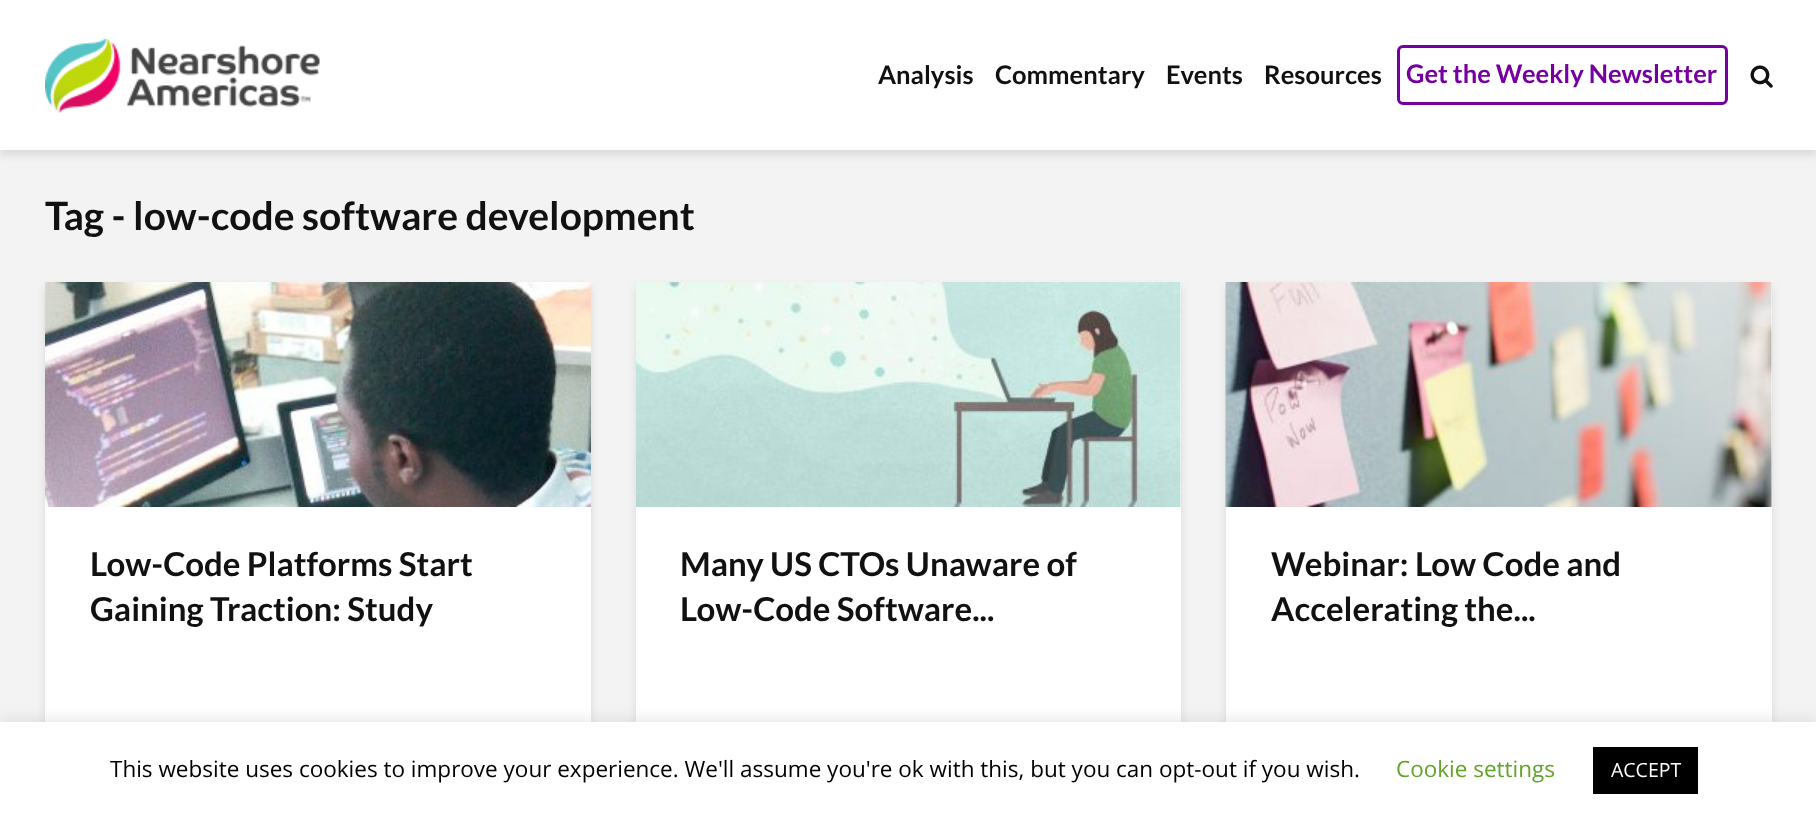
(async () => {
    const canvas = document.querySelector("canvas");
    canvas.width = 1816;
    canvas.height = 819;
    const context = canvas.getContext("2d");
    context.miterLimit = 4;
    context.fontKerning = "normal";
    function write(s, x, y, font, color) {
        context.font = font;
        context.fillStyle = color;
        context.fillText(s, x, y);
    }
    function block(x, y, w, h, color) {
        context.fillStyle = color;
        context.fillRect(x, y, w, h);
    }
    async function photo(src, x, y, w, h) {
        const img = new Image();
        img.src = src;
        await img.decode();
        context.drawImage(img, x, y, w, h);
    }

    block(0, 0, 1816, 819, "rgb(243, 243, 243)");
    context.fillStyle = "rgba(0, 1, 1, 0.1)";
    context.filter = "blur(4px)";
    context.beginPath();
    context.rect(0, 5, 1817, 150);
    context.fill();
    context.filter = "none";
    block(0, 0, 1816, 150, "rgb(255, 255, 255)");
    await photo("media/1.png", 45, 38, 275, 75);
    write("Analysis", 878, 84, "bold 25.5px Lato", "rgb(17, 17, 17)");
    write("Commentary", 995, 84, "bold 25.5px Lato", "rgb(17, 17, 17)");
    write("Events", 1166, 84, "bold 25.5px Lato", "rgb(17, 17, 17)");
    write("Resources", 1264, 84, "bold 25.5px Lato", "rgb(17, 17, 17)");
    context.beginPath();
    context.roundRect(1398.5, 46.5, 328, 57, 4.5);
    context.strokeStyle = "rgb(117, 0, 159)";
    context.lineWidth = 3;
    context.stroke();
    write("Get the Weekly Newsletter", 1406, 83, "bold 25.5px Lato", "rgb(117, 0, 159)");
    await photo("media/2.png", 1750, 65, 23, 23);
    write("Tag - low-code software development", 45, 230, "bold 39px Lato", "rgb(17, 17, 17)");
    context.fillStyle = "rgba(0, 1, 1, 0.1)";
    context.filter = "blur(4px)";
    context.beginPath();
    context.rect(45, 287, 546, 450);
    context.fill();
    context.filter = "none";
    block(45, 507, 546, 215, "rgb(255, 255, 255)");
    await photo("media/3.png", 45, 282, 546, 225);
    write("Low-Code Platforms Start", 90, 576, "bold 33px Lato", "rgb(17, 17, 17)");
    write("Gaining Traction: Study", 90, 621, "bold 33px Lato", "rgb(17, 17, 17)");
    context.fillStyle = "rgba(0, 1, 1, 0.1)";
    context.filter = "blur(4px)";
    context.beginPath();
    context.rect(636, 287, 545, 450);
    context.fill();
    context.filter = "none";
    block(636, 282, 545, 440, "rgb(255, 255, 255)");
    await photo("media/4.png", 636, 282, 545, 225);
    write("Many US CTOs Unaware of", 680, 576, "bold 33px Lato", "rgb(17, 17, 17)");
    write("Low-Code Software...", 680, 621, "bold 33px Lato", "rgb(17, 17, 17)");
    context.fillStyle = "rgba(0, 1, 1, 0.1)";
    context.filter = "blur(4px)";
    context.beginPath();
    context.rect(1226, 287, 546, 450);
    context.fill();
    context.filter = "none";
    block(1226, 282, 546, 440, "rgb(255, 255, 255)");
    await photo("media/5.png", 1225, 282, 547, 225);
    write("Webinar: Low Code and", 1271, 576, "bold 33px Lato", "rgb(17, 17, 17)");
    write("Accelerating the...", 1271, 621, "bold 33px Lato", "rgb(17, 17, 17)");
    context.fillStyle = "rgba(172, 171, 171, 0.3)";
    context.filter = "blur(7.5px)";
    context.beginPath();
    context.rect(0, 720, 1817, 98);
    context.fill();
    context.filter = "none";
    block(0, 722, 1816, 97, "rgb(255, 255, 255)");
    write("This website uses cookies to improve your experience. We'll assume you're ok with this, but you can opt-out if you wish.", 110, 777, "22.5px Open Sans", "rgb(0, 0, 0)");
    write("Cookie settings", 1396, 777, "22.5px Open Sans", "rgb(98, 163, 41)");
    block(1593, 747, 105, 47, "rgb(0, 0, 0)");
    write("ACCEPT", 1611, 777, "19.5px Open Sans", "rgb(255, 255, 255)");
})();
